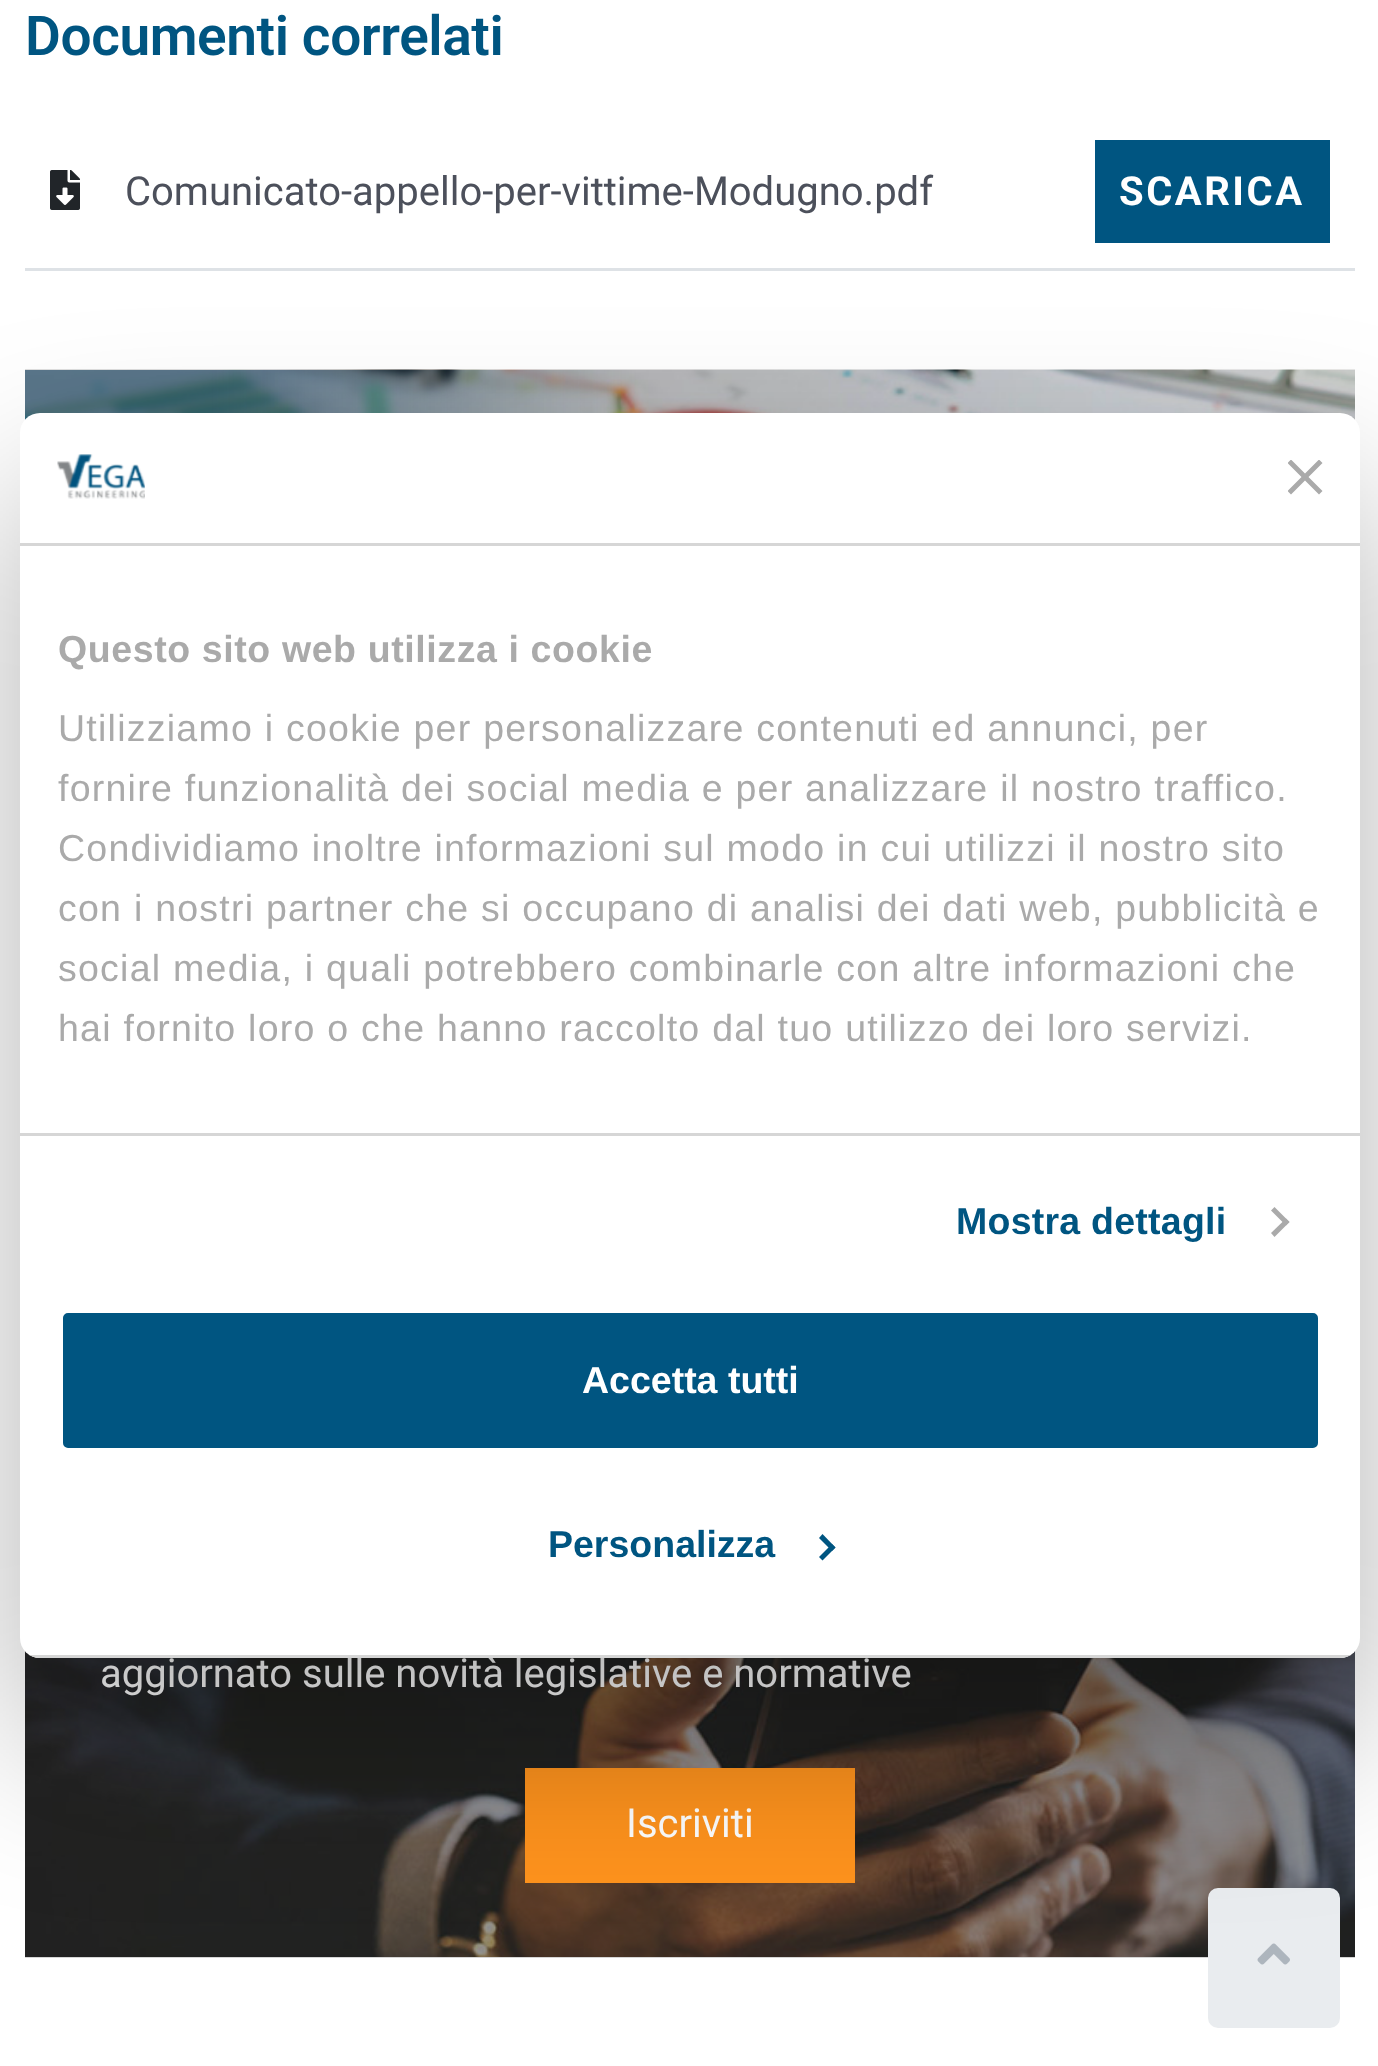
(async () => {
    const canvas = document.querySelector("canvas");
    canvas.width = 1378;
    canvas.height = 2066;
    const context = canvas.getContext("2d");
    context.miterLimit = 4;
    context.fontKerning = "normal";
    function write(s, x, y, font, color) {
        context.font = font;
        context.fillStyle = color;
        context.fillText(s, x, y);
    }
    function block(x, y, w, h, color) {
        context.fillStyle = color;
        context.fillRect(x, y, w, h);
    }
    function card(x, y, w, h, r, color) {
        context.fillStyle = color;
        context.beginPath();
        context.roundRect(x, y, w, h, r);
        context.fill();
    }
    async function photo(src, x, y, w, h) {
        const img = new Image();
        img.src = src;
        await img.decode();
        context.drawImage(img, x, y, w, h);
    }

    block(0, 0, 1378, 2066, "rgb(255, 255, 255)");
    context.letterSpacing = "-0.4px";
    write("Documenti correlati", 25, 55, "600 55px Roboto", "rgb(0, 85, 129)");
    block(25, 268, 1330, 3, "rgb(222, 226, 230)");
    await photo("media/1.png", 50, 170, 30, 40);
    context.letterSpacing = "0px";
    write("Comunicato-appello-per-vittime-Modugno.pdf", 125, 205, "40px Roboto", "rgb(76, 80, 91)");
    block(1095, 140, 235, 103, "rgb(0, 85, 129)");
    context.letterSpacing = "2.5px";
    write("SCARICA", 1119, 205, "bold 40px Roboto", "rgb(255, 255, 255)");
    await photo("media/2.png", 25, 369, 1330, 51);
    block(25, 1957, 1330, 1, "rgb(213, 213, 213)");
    await photo("media/3.png", 25, 1651, 1330, 306);
    context.letterSpacing = "0px";
    write("aggiornato sulle novità legislative e normative", 100, 1687, "40px Roboto", "rgb(255, 255, 255)");
    block(525, 1768, 330, 115, "rgb(255, 147, 29)");
    write("Iscriviti", 626, 1837, "40px Roboto", "rgb(255, 255, 255)");
    context.fillStyle = "rgb(233, 236, 239)";
    context.beginPath();
    context.roundRect(1209.5, 1889.5, 129, 137, 8.5);
    context.fill();
    context.strokeStyle = "rgb(233, 236, 239)";
    context.lineWidth = 3;
    context.stroke();
    await photo("media/4.png", 1257, 1943, 33, 22);
    context.fillStyle = "rgba(0, 0, 0, 0.3)";
    context.filter = "blur(85px)";
    context.beginPath();
    context.roundRect(20, 493, 1340, 1245, 20);
    context.fill();
    context.filter = "none";
    card(20, 413, 1340, 1245, 20, "rgb(255, 255, 255)");
    block(20, 543, 1340, 3, "rgb(214, 214, 214)");
    await photo("media/5.png", 57, 454, 88, 45);
    context.save();
    context.beginPath();
    context.rect(1288, 460, 35, 35);
    context.clip();
    context.fillStyle = "rgb(170, 170, 170)";
    context.beginPath();
    context.moveTo(1322.5, 463);
    context.lineTo(1319, 459.5);
    context.lineTo(1305, 473.5);
    context.lineTo(1291, 459.5);
    context.lineTo(1287.5, 463);
    context.lineTo(1301.5, 477);
    context.lineTo(1287.5, 491);
    context.lineTo(1291, 494.5);
    context.lineTo(1305, 480.5);
    context.lineTo(1319, 494.5);
    context.lineTo(1322.5, 491);
    context.lineTo(1308.5, 477);
    context.closePath();
    context.fill();
    context.restore();
    block(20, 1133, 1340, 3, "rgb(214, 214, 214)");
    context.letterSpacing = "0.6px";
    write("Questo sito web utilizza i cookie", 58, 662, "bold 37.5px Liberation Sans", "rgb(170, 170, 170)");
    context.letterSpacing = "1.25px";
    write("Utilizziamo i cookie per personalizzare contenuti ed annunci, per", 58, 741, "37.5px Liberation Sans", "rgb(170, 170, 170)");
    write("fornire funzionalità dei social media e per analizzare il nostro traffico.", 58, 801, "37.5px Liberation Sans", "rgb(170, 170, 170)");
    write("Condividiamo inoltre informazioni sul modo in cui utilizzi il nostro sito", 58, 861, "37.5px Liberation Sans", "rgb(170, 170, 170)");
    write("con i nostri partner che si occupano di analisi dei dati web, pubblicità e", 58, 921, "37.5px Liberation Sans", "rgb(170, 170, 170)");
    write("social media, i quali potrebbero combinarle con altre informazioni che", 58, 981, "37.5px Liberation Sans", "rgb(170, 170, 170)");
    write("hai fornito loro o che hanno raccolto dal tuo utilizzo dei loro servizi.", 58, 1041, "37.5px Liberation Sans", "rgb(170, 170, 170)");
    context.letterSpacing = "0.25px";
    write("Mostra dettagli", 956, 1234, "bold 37.5px Liberation Sans", "rgb(0, 85, 129)");
    context.fillStyle = "rgb(170, 170, 170)";
    context.beginPath();
    context.moveTo(1274.5, 1207);
    context.lineTo(1289.5, 1222);
    context.lineTo(1286, 1225.5);
    context.lineTo(1271, 1210.5);
    context.closePath();
    context.fill();
    context.beginPath();
    context.moveTo(1286, 1218.5);
    context.lineTo(1289.5, 1222);
    context.lineTo(1274.5, 1237);
    context.lineTo(1271, 1233);
    context.closePath();
    context.fill();
    context.save();
    context.beginPath();
    context.roundRect(20, 413, 1340, 1245, 20);
    context.clip();
    block(29, 1655, 1322, 3, "rgb(214, 214, 214)");
    context.restore();
    context.fillStyle = "rgb(0, 85, 129)";
    context.beginPath();
    context.roundRect(60.5, 1310.5, 1260, 140, 7.5);
    context.fill();
    context.strokeStyle = "rgb(255, 255, 255)";
    context.lineWidth = 5;
    context.stroke();
    context.letterSpacing = "0px";
    write("Accetta tutti", 582, 1393, "bold 37.5px Liberation Sans", "rgb(255, 255, 255)");
    write("Personalizza", 548, 1557, "bold 37.5px Liberation Sans", "rgb(0, 85, 129)");
    context.beginPath();
    context.moveTo(822.5, 1534);
    context.lineTo(835.5, 1547.5);
    context.lineTo(832, 1551);
    context.lineTo(819, 1538);
    context.closePath();
    context.fill();
    context.beginPath();
    context.moveTo(832, 1544);
    context.lineTo(835.5, 1547.5);
    context.lineTo(822.5, 1560.5);
    context.lineTo(819, 1557);
    context.closePath();
    context.fill();
})();
